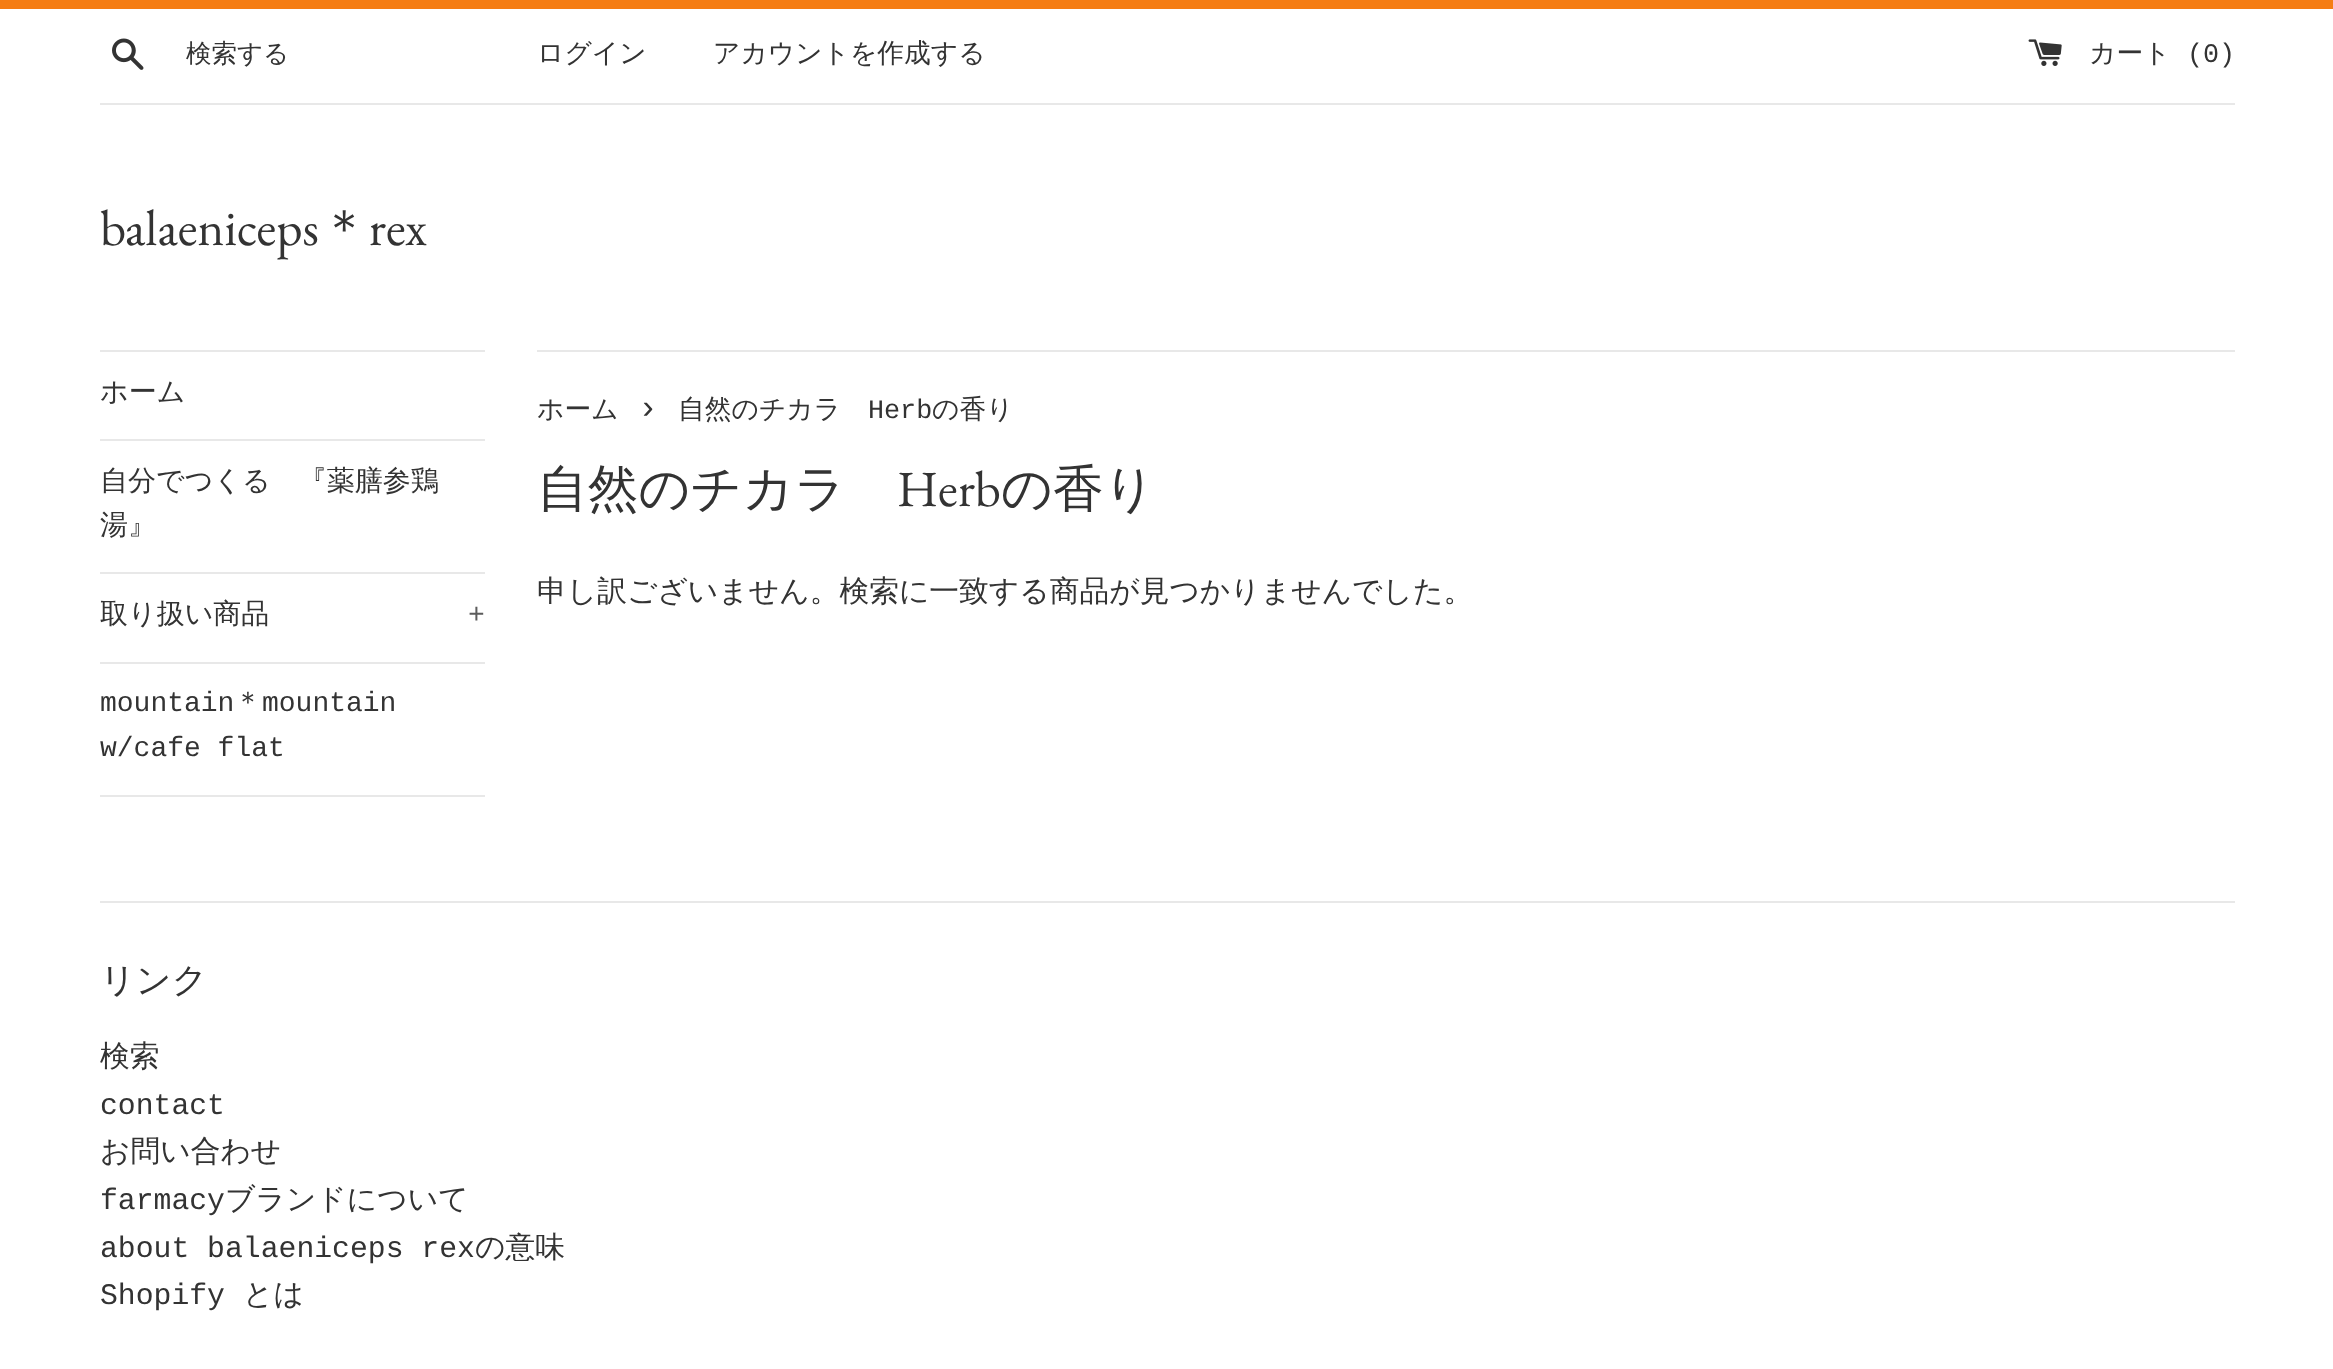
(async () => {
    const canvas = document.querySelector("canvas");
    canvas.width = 2333;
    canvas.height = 1369;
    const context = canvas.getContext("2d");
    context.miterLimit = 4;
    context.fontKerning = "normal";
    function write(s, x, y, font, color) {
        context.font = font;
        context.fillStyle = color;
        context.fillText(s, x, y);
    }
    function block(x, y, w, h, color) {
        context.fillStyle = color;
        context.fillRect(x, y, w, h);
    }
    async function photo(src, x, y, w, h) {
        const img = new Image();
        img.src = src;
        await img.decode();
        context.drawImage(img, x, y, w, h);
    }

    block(0, 0, 2333, 1369, "rgb(255, 255, 255)");
    block(0, 0, 2333, 9, "rgb(245, 125, 19)");
    await photo("media/1.png", 112, 38, 32, 32);
    write("検索する", 186, 62, "500 25.5px WenQuanYi Zen Hei", "rgb(51, 51, 51)");
    write("ログイン", 537, 62, "500 26.75px WenQuanYi Zen Hei", "rgb(51, 51, 51)");
    write("アカウントを作成する", 713, 62, "500 26.75px WenQuanYi Zen Hei", "rgb(51, 51, 51)");
    await photo("media/2.png", 2028, 39, 34, 27);
    write("カート", 2089, 62, "500 26.75px WenQuanYi Zen Hei", "rgb(51, 51, 51)");
    write("(0)", 2187, 62, "26.75px Liberation Mono", "rgb(51, 51, 51)");
    block(100, 103, 2135, 2, "rgb(232, 232, 232)");
    write("balaeniceps", 100, 245, "50.75px EB Garamond", "rgb(51, 51, 51)");
    write("＊", 319, 245, "500 50.75px WenQuanYi Zen Hei", "rgb(51, 51, 51)");
    write("rex", 369, 245, "50.75px EB Garamond", "rgb(51, 51, 51)");
    block(100, 350, 385, 2, "rgb(232, 232, 232)");
    block(100, 439, 385, 2, "rgb(232, 232, 232)");
    write("ホーム", 100, 401, "500 28px WenQuanYi Zen Hei", "rgb(51, 51, 51)");
    block(100, 572, 385, 2, "rgb(232, 232, 232)");
    write("自分でつくる　『薬膳参鶏", 100, 490, "500 28px WenQuanYi Zen Hei", "rgb(51, 51, 51)");
    write("湯』", 100, 534, "500 28px WenQuanYi Zen Hei", "rgb(51, 51, 51)");
    block(100, 662, 385, 2, "rgb(232, 232, 232)");
    write("取り扱い商品", 100, 623, "500 28px WenQuanYi Zen Hei", "rgb(51, 51, 51)");
    write("+", 468, 623, "28px Liberation Mono", "rgb(92, 92, 92)");
    block(100, 795, 385, 2, "rgb(232, 232, 232)");
    write("mountain", 100, 711, "28px Liberation Mono", "rgb(51, 51, 51)");
    write("＊", 234, 711, "500 28px WenQuanYi Zen Hei", "rgb(51, 51, 51)");
    write("mountain", 262, 711, "28px Liberation Mono", "rgb(51, 51, 51)");
    write("w/cafe flat", 100, 756, "28px Liberation Mono", "rgb(51, 51, 51)");
    block(537, 350, 1698, 2, "rgb(232, 232, 232)");
    write("ホーム", 537, 418, "500 26.75px WenQuanYi Zen Hei", "rgb(51, 51, 51)");
    write("›", 638, 418, "33px Liberation Mono", "rgb(51, 51, 51)");
    write("自然のチカラ", 678, 418, "500 26.75px WenQuanYi Zen Hei", "rgb(51, 51, 51)");
    write("Herb", 868, 418, "26.75px Liberation Mono", "rgb(51, 51, 51)");
    write("の香り", 932, 418, "500 26.75px WenQuanYi Zen Hei", "rgb(51, 51, 51)");
    write("自然のチカラ", 537, 506, "500 50.75px WenQuanYi Zen Hei", "rgb(51, 51, 51)");
    write("Herb", 897, 506, "50.75px EB Garamond", "rgb(51, 51, 51)");
    write("の香り", 1001, 506, "500 50.75px WenQuanYi Zen Hei", "rgb(51, 51, 51)");
    write("申し訳ございません。検索に一致する商品が見つかりませんでした。", 537, 601, "500 29.75px WenQuanYi Zen Hei", "rgb(51, 51, 51)");
    block(100, 901, 2135, 2, "rgb(232, 232, 232)");
    write("リンク", 100, 992, "500 35px WenQuanYi Zen Hei", "rgb(51, 51, 51)");
    write("検索", 100, 1066, "500 29.75px WenQuanYi Zen Hei", "rgb(51, 51, 51)");
    write("contact", 100, 1114, "29.75px Liberation Mono", "rgb(51, 51, 51)");
    write("お問い合わせ", 100, 1161, "500 29.75px WenQuanYi Zen Hei", "rgb(51, 51, 51)");
    write("farmacy", 100, 1209, "29.75px Liberation Mono", "rgb(51, 51, 51)");
    write("ブランドについて", 225, 1209, "500 29.75px WenQuanYi Zen Hei", "rgb(51, 51, 51)");
    write("about balaeniceps rex", 100, 1257, "29.75px Liberation Mono", "rgb(51, 51, 51)");
    write("の意味", 475, 1257, "500 29.75px WenQuanYi Zen Hei", "rgb(51, 51, 51)");
    write("Shopify", 100, 1304, "29.75px Liberation Mono", "rgb(51, 51, 51)");
    write("とは", 243, 1304, "500 29.75px WenQuanYi Zen Hei", "rgb(51, 51, 51)");
})();
